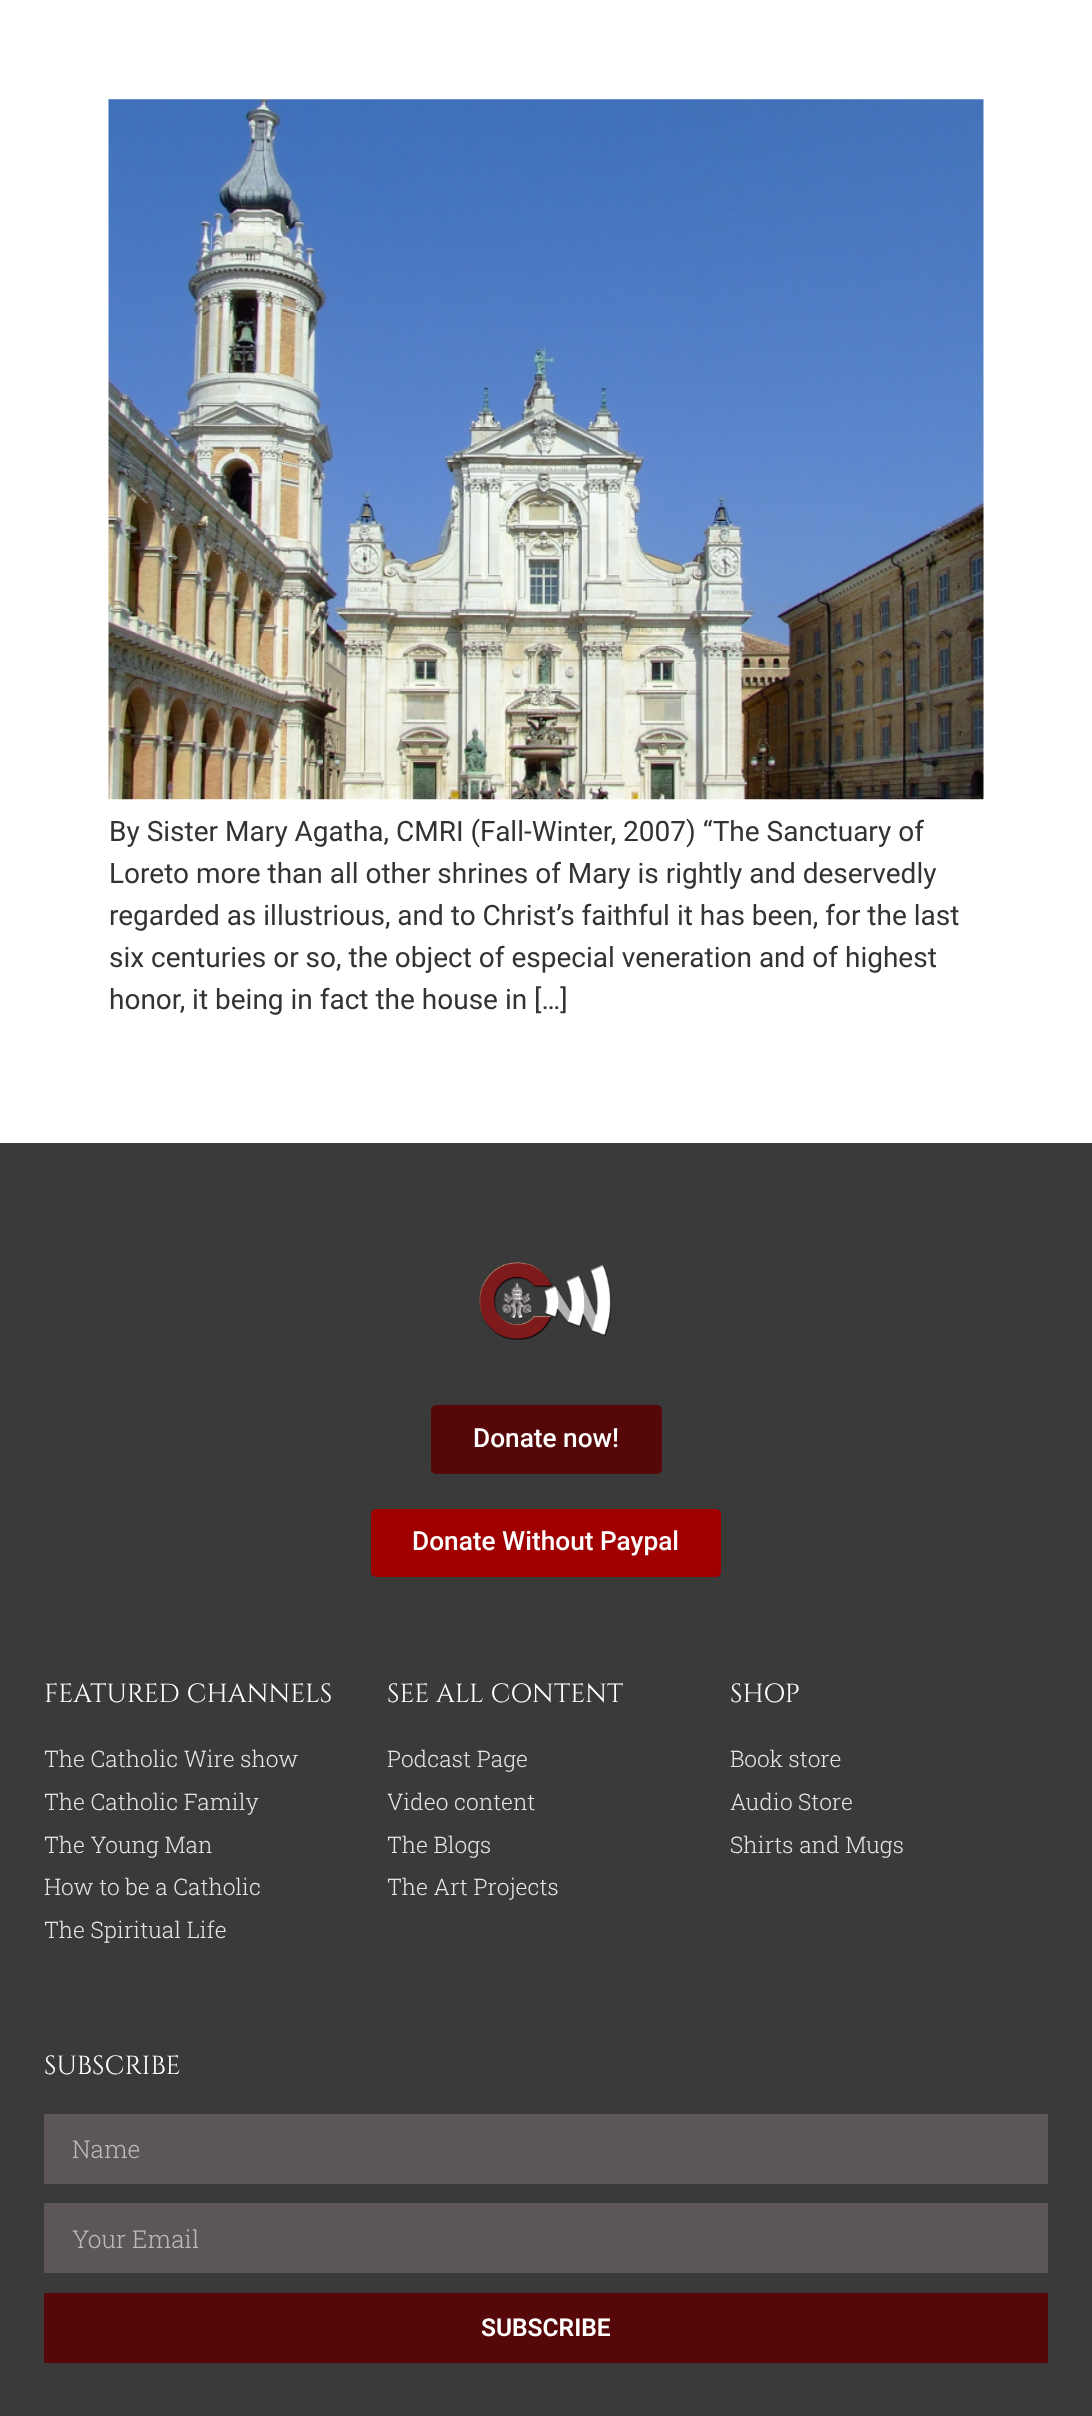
(async () => {
    const canvas = document.querySelector("canvas");
    canvas.width = 1092;
    canvas.height = 2416;
    const context = canvas.getContext("2d");
    context.miterLimit = 4;
    context.fontKerning = "normal";
    function write(s, x, y, font, color) {
        context.font = font;
        context.fillStyle = color;
        context.fillText(s, x, y);
    }
    function block(x, y, w, h, color) {
        context.fillStyle = color;
        context.fillRect(x, y, w, h);
    }
    function card(x, y, w, h, r, color) {
        context.fillStyle = color;
        context.beginPath();
        context.roundRect(x, y, w, h, r);
        context.fill();
    }
    async function photo(src, x, y, w, h) {
        const img = new Image();
        img.src = src;
        await img.decode();
        context.drawImage(img, x, y, w, h);
    }

    block(0, 0, 1092, 2416, "rgb(255, 255, 255)");
    await photo("media/1.png", 108, 99, 876, 701);
    write("By Sister Mary Agatha, CMRI (Fall-Winter, 2007) “The Sanctuary of", 109, 841, "28px Roboto", "rgb(51, 51, 51)");
    write("Loreto more than all other shrines of Mary is rightly and deservedly", 109, 883, "28px Roboto", "rgb(51, 51, 51)");
    write("regarded as illustrious, and to Christ’s faithful it has been, for the last", 109, 925, "28px Roboto", "rgb(51, 51, 51)");
    write("six centuries or so, the object of especial veneration and of highest", 109, 967, "28px Roboto", "rgb(51, 51, 51)");
    write("honor, it being in fact the house in […]", 109, 1009, "28px Roboto", "rgb(51, 51, 51)");
    block(0, 1143, 1092, 1273, "rgb(58, 58, 58)");
    await photo("media/2.png", 479, 1262, 133, 78);
    card(431, 1405, 231, 69, 5, "rgb(86, 7, 7)");
    write("Donate now!", 473, 1447, "500 26.25px Roboto", "rgb(255, 255, 255)");
    card(371, 1509, 350, 68, 5, "rgb(161, 0, 0)");
    write("Donate Without Paypal", 412, 1550, "500 26.25px Roboto", "rgb(255, 255, 255)");
    write("FEATURED CHANNELS", 44, 1702, "26.25px Cinzel", "rgb(255, 255, 255)");
    write("The Catholic Wire show", 44, 1767, "300 22.75px Roboto Slab", "rgb(230, 230, 230)");
    write("The Catholic Family", 44, 1810, "300 22.75px Roboto Slab", "rgb(230, 230, 230)");
    write("The Young Man", 44, 1853, "300 22.75px Roboto Slab", "rgb(230, 230, 230)");
    write("How to be a Catholic", 44, 1895, "300 22.75px Roboto Slab", "rgb(230, 230, 230)");
    write("The Spiritual Life", 44, 1938, "300 22.75px Roboto Slab", "rgb(230, 230, 230)");
    write("SEE ALL CONTENT", 387, 1702, "26.25px Cinzel", "rgb(255, 255, 255)");
    write("Podcast Page", 387, 1767, "300 22.75px Roboto Slab", "rgb(230, 230, 230)");
    write("Video content", 387, 1810, "300 22.75px Roboto Slab", "rgb(230, 230, 230)");
    write("The Blogs", 387, 1853, "300 22.75px Roboto Slab", "rgb(230, 230, 230)");
    write("The Art Projects", 387, 1895, "300 22.75px Roboto Slab", "rgb(230, 230, 230)");
    write("SHOP", 730, 1702, "26.25px Cinzel", "rgb(255, 255, 255)");
    write("Book store", 730, 1767, "300 22.75px Roboto Slab", "rgb(230, 230, 230)");
    write("Audio Store", 730, 1810, "300 22.75px Roboto Slab", "rgb(230, 230, 230)");
    write("Shirts and Mugs", 730, 1853, "300 22.75px Roboto Slab", "rgb(230, 230, 230)");
    write("SUBSCRIBE", 44, 2074, "26.25px Cinzel", "rgb(255, 255, 255)");
    block(44, 2114, 1004, 70, "rgb(92, 86, 86)");
    write("Name", 72, 2158, "300 24.5px Roboto Slab", "rgb(190, 187, 187)");
    block(44, 2203, 1004, 70, "rgb(92, 86, 86)");
    write("Your Email", 72, 2248, "300 24.5px Roboto Slab", "rgb(190, 187, 187)");
    block(44, 2293, 1004, 70, "rgb(86, 7, 7)");
    write("SUBSCRIBE", 481, 2336, "600 24.5px Roboto", "rgb(255, 255, 255)");
})();
